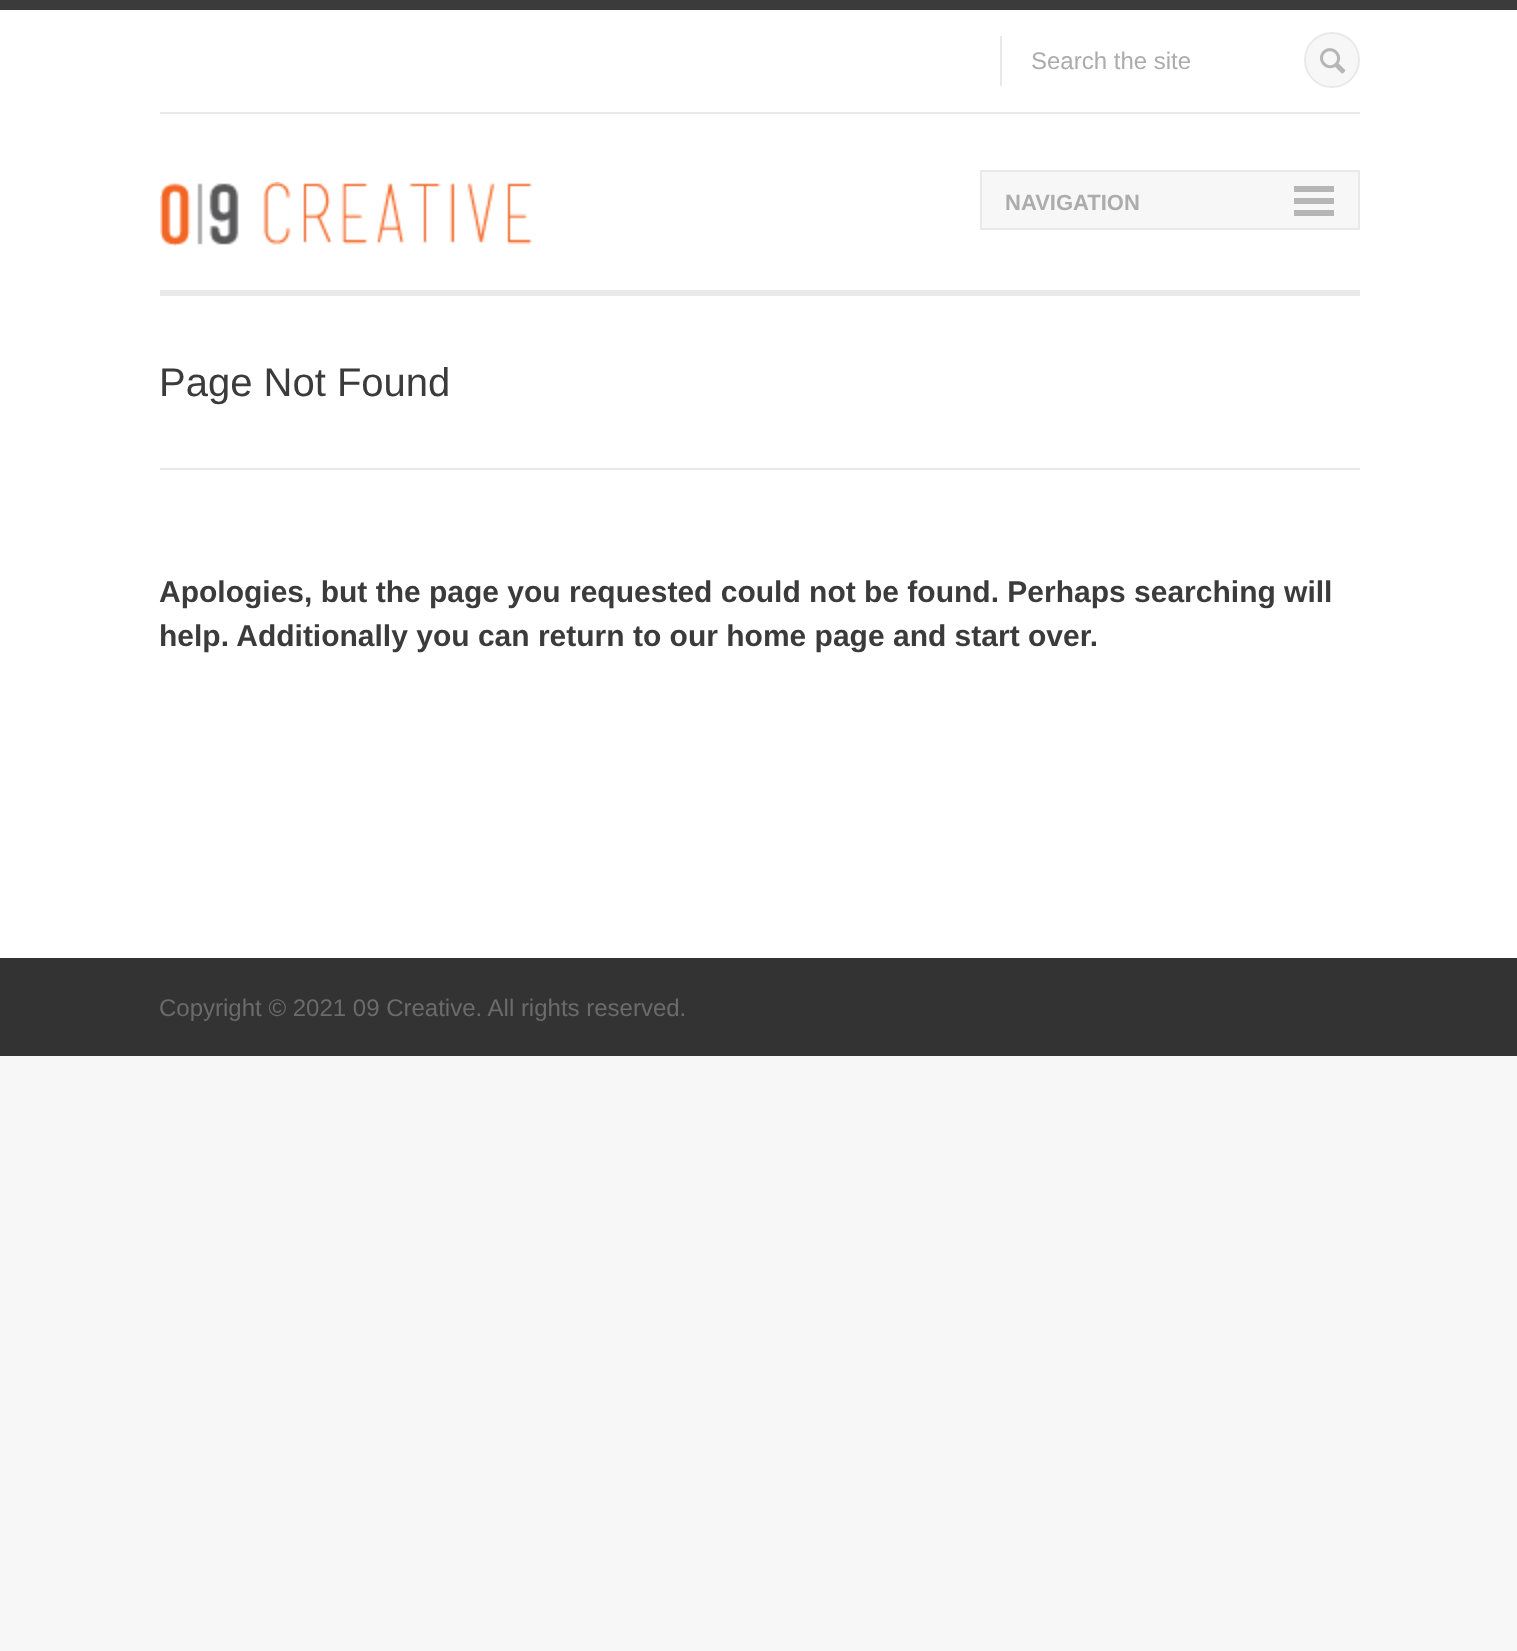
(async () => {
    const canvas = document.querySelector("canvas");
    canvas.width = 1517;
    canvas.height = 1651;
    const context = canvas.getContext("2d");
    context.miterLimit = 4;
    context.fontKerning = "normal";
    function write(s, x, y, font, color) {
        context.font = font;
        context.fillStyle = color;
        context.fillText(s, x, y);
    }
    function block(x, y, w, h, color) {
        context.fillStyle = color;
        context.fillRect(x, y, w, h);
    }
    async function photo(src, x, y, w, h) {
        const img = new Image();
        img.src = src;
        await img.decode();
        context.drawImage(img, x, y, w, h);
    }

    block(0, 0, 1517, 1651, "rgb(247, 247, 247)");
    block(0, 10, 1517, 948, "rgb(255, 255, 255)");
    block(0, 0, 1517, 10, "rgb(59, 59, 59)");
    block(1000, 36, 2, 50, "rgb(233, 233, 233)");
    write("Search the site", 1031, 69, "24px Liberation Sans", "rgb(172, 172, 172)");
    context.fillStyle = "rgb(247, 247, 247)";
    context.beginPath();
    context.arc(1332, 60, 27, 0, Math.PI * 2);
    context.fill();
    context.strokeStyle = "rgb(233, 233, 233)";
    context.lineWidth = 2;
    context.stroke();
    await photo("media/1.png", 1320, 48, 26, 26);
    context.beginPath();
    context.rect(981, 171, 378, 58);
    context.fill();
    context.stroke();
    write("NAVIGATION", 1005, 210, "bold 22px Liberation Sans", "rgb(172, 172, 172)");
    block(1294, 186, 40, 6, "rgb(182, 182, 182)");
    block(1294, 198, 40, 6, "rgb(182, 182, 182)");
    block(1294, 210, 40, 6, "rgb(182, 182, 182)");
    block(160, 112, 1200, 2, "rgb(233, 233, 233)");
    block(160, 290, 1200, 6, "rgb(233, 233, 233)");
    await photo("media/2.png", 160, 182, 372, 64);
    block(160, 468, 1200, 2, "rgb(233, 233, 233)");
    write("Page Not Found", 159, 396, "40px Liberation Sans", "rgb(59, 59, 59)");
    write("Apologies, but the page you requested could not be found. Perhaps searching will", 159, 602, "bold 30px Liberation Sans", "rgb(59, 59, 59)");
    write("help. Additionally you can return to our home page and start over.", 159, 646, "bold 30px Liberation Sans", "rgb(59, 59, 59)");
    block(0, 958, 1517, 98, "rgb(51, 51, 51)");
    write("Copyright © 2021 09 Creative. All rights reserved.", 159, 1016, "24px Liberation Sans", "rgb(107, 107, 107)");
})();
